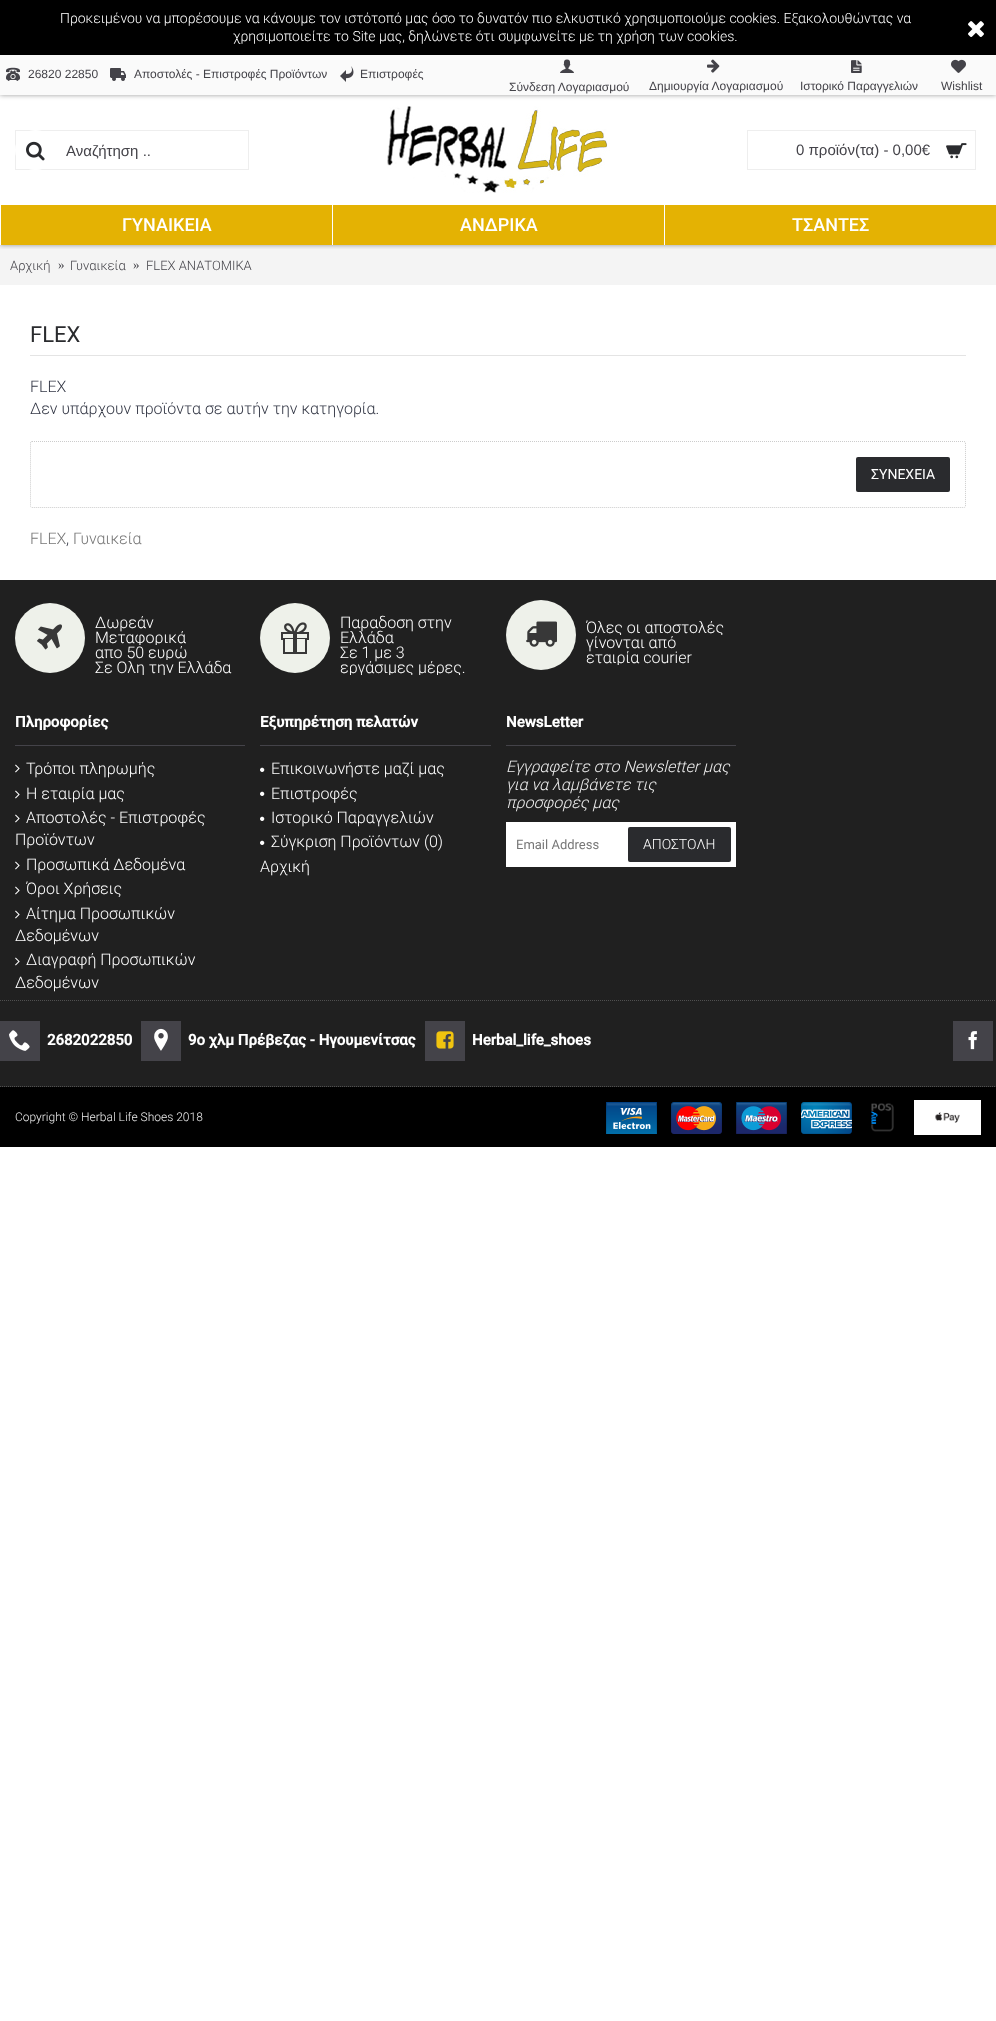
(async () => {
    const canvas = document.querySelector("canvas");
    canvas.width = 996;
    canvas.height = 2021;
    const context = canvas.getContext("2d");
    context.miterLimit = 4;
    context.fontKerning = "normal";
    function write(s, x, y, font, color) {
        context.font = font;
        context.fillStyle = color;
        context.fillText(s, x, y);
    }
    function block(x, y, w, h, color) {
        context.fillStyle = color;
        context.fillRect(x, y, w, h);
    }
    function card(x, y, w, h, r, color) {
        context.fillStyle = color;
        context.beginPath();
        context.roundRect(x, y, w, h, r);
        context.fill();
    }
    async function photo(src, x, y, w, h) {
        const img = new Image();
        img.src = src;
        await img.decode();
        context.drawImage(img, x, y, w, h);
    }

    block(0, 0, 996, 2021, "rgb(255, 255, 255)");
    block(0, 245, 996, 40, "rgb(244, 244, 244)");
    context.save();
    context.beginPath();
    context.rect(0, 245, 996, 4);
    context.clip();
    context.fillStyle = "rgba(0, 0, 0, 0.4)";
    context.filter = "blur(2.5px)";
    context.beginPath();
    context.rect(0, 55, 996, 190);
    context.fill();
    context.filter = "none";
    context.restore();
    context.fillStyle = "rgba(0, 0, 0, 0.4)";
    context.filter = "blur(2.5px)";
    context.beginPath();
    context.rect(0, 55, 996, 40);
    context.fill();
    context.filter = "none";
    block(0, 0, 996, 55, "rgb(0, 0, 0)");
    write("Προκειμένου να μπορέσουμε να κάνουμε τον ιστότοπό μας όσο το δυνατόν πιο ελκυστικό χρησιμοποιούμε cookies. Εξακολουθώντας να", 60, 23, "300 14px Roboto", "rgb(255, 255, 255)");
    write("χρησιμοποιείτε το Site μας, δηλώνετε ότι συμφωνείτε με τη χρήση των cookies.", 233, 41, "300 14px Roboto", "rgb(255, 255, 255)");
    await photo("media/1.png", 968, 21, 16, 16);
    block(0, 55, 996, 40, "rgb(250, 250, 250)");
    await photo("media/2.png", 6, 67, 14, 14);
    write("26820 22850", 28, 78, "12px Liberation Sans", "rgb(68, 67, 73)");
    await photo("media/3.png", 110, 68, 16, 13);
    write("Αποστολές - Επιστροφές Προϊόντων", 134, 78, "12px Liberation Sans", "rgb(68, 67, 73)");
    await photo("media/4.png", 340, 66, 14, 16);
    write("Επιστροφές", 360, 78, "12px Liberation Sans", "rgb(68, 67, 73)");
    await photo("media/5.png", 560, 59, 14, 14);
    write("Σύνδεση Λογαριασμού", 509, 91, "12px Liberation Sans", "rgb(68, 67, 73)");
    await photo("media/6.png", 707, 59, 13, 14);
    write("Δημιουργία Λογαριασμού", 649, 90, "12px Liberation Sans", "rgb(68, 67, 73)");
    await photo("media/7.png", 851, 60, 11, 13);
    write("Ιστορικό Παραγγελιών", 800, 90, "12px Liberation Sans", "rgb(68, 67, 73)");
    await photo("media/8.png", 951, 59, 15, 14);
    write("Wishlist", 941, 90, "12px Liberation Sans", "rgb(68, 67, 73)");
    context.strokeStyle = "rgb(238, 238, 238)";
    context.strokeRect(15.5, 130.5, 233, 39);
    card(15, 130, 41, 40, 20, "rgb(255, 255, 255)");
    await photo("media/9.png", 26, 141, 19, 20);
    context.save();
    context.beginPath();
    context.rect(66, 142, 182, 17);
    context.clip();
    write("Αναζήτηση ..", 66, 156, "15px Liberation Sans", "rgb(68, 67, 73)");
    context.restore();
    await photo("media/10.png", 387, 106, 223, 87);
    context.strokeRect(747.5, 130.5, 228, 39);
    write("0 προϊόν(τα) - 0,00€", 796, 155, "15px Liberation Sans", "rgb(68, 67, 73)");
    await photo("media/11.png", 946, 143, 21, 16);
    block(1, 205, 995, 40, "rgb(228, 178, 3)");
    write("ΓΥΝΑΙΚΕΙΑ", 122, 231, "500 18px Roboto", "rgb(255, 255, 255)");
    block(332, 205, 1, 40, "rgb(255, 255, 255)");
    write("ΑΝΔΡΙΚΑ", 460, 231, "500 18px Roboto", "rgb(255, 255, 255)");
    block(664, 205, 1, 40, "rgb(255, 255, 255)");
    write("ΤΣΑΝΤΕΣ", 792, 231, "500 18px Roboto", "rgb(255, 255, 255)");
    write("Αρχική", 10, 270, "300 13px Roboto", "rgb(68, 67, 73)");
    write("»", 58, 269, "13px Liberation Serif", "rgb(68, 67, 73)");
    write("Γυναικεία", 70, 270, "300 13px Roboto", "rgb(68, 67, 73)");
    write("»", 133, 269, "13px Liberation Serif", "rgb(68, 67, 73)");
    write("FLEX ΑΝΑΤΟΜΙΚΑ", 146, 270, "300 13px Roboto", "rgb(68, 67, 73)");
    block(30, 355, 936, 1, "rgb(228, 228, 228)");
    write("FLEX", 30, 342, "22px Roboto", "rgb(42, 43, 46)");
    write("FLEX", 30, 392, "300 16px Roboto", "rgb(51, 55, 69)");
    write("Δεν υπάρχουν προϊόντα σε αυτήν την κατηγορία.", 30, 414, "300 16px Roboto", "rgb(51, 55, 69)");
    context.beginPath();
    context.moveTo(32, 441.5);
    context.lineTo(964, 441.5);
    context.bezierCurveTo(965, 441.5, 965.5, 442, 965.5, 443);
    context.lineTo(965.5, 506);
    context.bezierCurveTo(965.5, 507, 965, 507.5, 964, 507.5);
    context.lineTo(32, 507.5);
    context.bezierCurveTo(31, 507.5, 30.5, 507, 30.5, 506);
    context.lineTo(30.5, 443);
    context.bezierCurveTo(30.5, 442, 31, 441.5, 32, 441.5);
    context.closePath();
    context.strokeStyle = "rgb(204, 204, 204)";
    context.setLineDash([1, 1]);
    context.stroke();
    card(856, 457, 94, 35, 2, "rgb(42, 43, 46)");
    write("ΣΥΝΕΧΕΙΑ", 871, 479, "14px Roboto", "rgb(255, 255, 255)");
    write("FLEX", 30, 544, "300 16px Roboto", "rgb(119, 119, 119)");
    write(",", 66, 544, "300 16px Roboto", "rgb(51, 55, 69)");
    write("Γυναικεία", 73, 544, "300 16px Roboto", "rgb(119, 119, 119)");
    block(0, 580, 996, 507, "rgb(32, 32, 32)");
    context.fillStyle = "rgb(238, 241, 234)";
    context.beginPath();
    context.arc(50, 638, 35, 0, Math.PI * 2);
    context.fill();
    await photo("media/12.png", 37, 624, 25, 26);
    write("Δωρεάν", 95, 628, "300 16px Roboto", "rgb(255, 255, 255)");
    context.save();
    context.beginPath();
    context.rect(95, 615, 140, 30);
    context.clip();
    write("Μεταφορικά", 95, 643, "300 16px Roboto", "rgb(255, 255, 255)");
    context.restore();
    context.save();
    context.beginPath();
    context.rect(95, 645, 140, 15);
    context.clip();
    write("απο 50 ευρώ", 95, 658, "300 16px Roboto", "rgb(255, 255, 255)");
    context.restore();
    context.save();
    context.beginPath();
    context.rect(95, 660, 140, 15);
    context.clip();
    write("Σε Ολη την Ελλάδα", 95, 673, "300 16px Roboto", "rgb(255, 255, 255)");
    context.restore();
    context.fillStyle = "rgb(238, 241, 234)";
    context.beginPath();
    context.arc(295, 638, 35, 0, Math.PI * 2);
    context.fill();
    await photo("media/13.png", 281, 622, 28, 32);
    write("Παραδοση στην", 340, 628, "300 16px Roboto", "rgb(255, 255, 255)");
    write("Ελλάδα", 340, 643, "300 16px Roboto", "rgb(255, 255, 255)");
    write("Σε 1 με 3", 340, 658, "300 16px Roboto", "rgb(255, 255, 255)");
    context.save();
    context.beginPath();
    context.rect(340, 645, 141, 30);
    context.clip();
    write("εργάσιμες μέρες.", 340, 673, "300 16px Roboto", "rgb(255, 255, 255)");
    context.restore();
    context.fillStyle = "rgb(238, 241, 234)";
    context.beginPath();
    context.arc(541, 635, 35, 0, Math.PI * 2);
    context.fill();
    await photo("media/14.png", 526, 621, 31, 26);
    context.save();
    context.beginPath();
    context.rect(586, 620, 140, 15);
    context.clip();
    write("Όλες οι αποστολές", 586, 633, "300 16px Roboto", "rgb(255, 255, 255)");
    context.restore();
    write("γίνονται από", 586, 648, "300 16px Roboto", "rgb(255, 255, 255)");
    context.save();
    context.beginPath();
    context.rect(586, 635, 140, 30);
    context.clip();
    write("εταιρία courier", 586, 663, "300 16px Roboto", "rgb(255, 255, 255)");
    context.restore();
    block(15, 745, 230, 1, "rgb(68, 67, 73)");
    write("Πληροφορίες", 15, 727, "bold 15px Roboto", "rgb(255, 255, 255)");
    await photo("media/15.png", 15, 764, 5, 9);
    write("Τρόποι πληρωμής", 26, 774, "300 16px Roboto", "rgb(255, 255, 255)");
    await photo("media/15.png", 15, 790, 5, 9);
    write("Η εταιρία μας", 26, 799, "300 16px Roboto", "rgb(255, 255, 255)");
    await photo("media/15.png", 15, 814, 5, 9);
    write("Αποστολές - Επιστροφές", 26, 823, "300 16px Roboto", "rgb(255, 255, 255)");
    write("Προϊόντων", 15, 845, "300 16px Roboto", "rgb(255, 255, 255)");
    await photo("media/15.png", 15, 861, 5, 9);
    write("Προσωπικά Δεδομένα", 26, 870, "300 16px Roboto", "rgb(255, 255, 255)");
    await photo("media/15.png", 15, 886, 5, 9);
    write("Όροι Χρήσεις", 26, 894, "300 16px Roboto", "rgb(255, 255, 255)");
    await photo("media/15.png", 15, 910, 5, 9);
    write("Αίτημα Προσωπικών", 26, 919, "300 16px Roboto", "rgb(255, 255, 255)");
    write("Δεδομένων", 15, 941, "300 16px Roboto", "rgb(255, 255, 255)");
    await photo("media/15.png", 15, 957, 5, 9);
    write("Διαγραφή Προσωπικών", 26, 965, "300 16px Roboto", "rgb(255, 255, 255)");
    write("Δεδομένων", 15, 988, "300 16px Roboto", "rgb(255, 255, 255)");
    block(260, 745, 231, 1, "rgb(68, 67, 73)");
    write("Εξυπηρέτηση πελατών", 260, 727, "bold 15px Roboto", "rgb(255, 255, 255)");
    await photo("media/16.png", 260, 767, 5, 5);
    write("Επικοινωνήστε μαζί μας", 271, 774, "300 16px Roboto", "rgb(255, 255, 255)");
    await photo("media/16.png", 260, 791, 5, 5);
    write("Επιστροφές", 271, 799, "300 16px Roboto", "rgb(255, 255, 255)");
    await photo("media/16.png", 260, 816, 5, 5);
    write("Ιστορικό Παραγγελιών", 271, 823, "300 16px Roboto", "rgb(255, 255, 255)");
    await photo("media/16.png", 260, 840, 5, 5);
    write("Σύγκριση Προϊόντων (0)", 271, 847, "300 16px Roboto", "rgb(255, 255, 255)");
    write("Αρχική", 260, 872, "300 16px Roboto", "rgb(255, 255, 255)");
    block(506, 745, 230, 1, "rgb(68, 67, 73)");
    write("NewsLetter", 506, 727, "bold 15px Roboto", "rgb(255, 255, 255)");
    write("Εγγραφείτε στο Newsletter μας", 506, 772, "italic 300 16px Roboto", "rgb(238, 238, 238)");
    write("για να λαμβάνετε τις", 506, 790, "italic 300 16px Roboto", "rgb(238, 238, 238)");
    write("προσφορές μας", 506, 808, "italic 300 16px Roboto", "rgb(238, 238, 238)");
    block(506, 822, 230, 45, "rgb(255, 255, 255)");
    write("Email Address", 516, 849, "13px Roboto", "rgb(119, 119, 119)");
    card(628, 827, 103, 35, 2, "rgb(42, 43, 46)");
    write("ΑΠΟΣΤΟΛΗ", 643, 849, "300 14px Roboto", "rgb(255, 255, 255)");
    context.beginPath();
    context.moveTo(0, 1000.5);
    context.lineTo(996, 1000.5);
    context.strokeStyle = "rgb(80, 80, 80)";
    context.stroke();
    context.beginPath();
    context.moveTo(0, 1086.5);
    context.lineTo(996, 1086.5);
    context.stroke();
    block(0, 1021, 40, 40, "rgb(68, 67, 73)");
    await photo("media/17.png", 9, 1030, 21, 21);
    write("2682022850", 47, 1045, "bold 15px Roboto", "rgb(255, 255, 255)");
    block(141, 1021, 40, 40, "rgb(68, 67, 73)");
    await photo("media/18.png", 154, 1028, 14, 23);
    write("9ο χλμ Πρέβεζας - Ηγουμενίτσας", 188, 1045, "bold 15px Roboto", "rgb(255, 255, 255)");
    block(425, 1021, 40, 40, "rgb(68, 67, 73)");
    await photo("media/19.png", 436, 1031, 18, 18);
    write("Herbal_life_shoes", 472, 1045, "bold 15px Roboto", "rgb(255, 255, 255)");
    block(953, 1021, 40, 40, "rgb(68, 67, 73)");
    await photo("media/20.png", 968, 1031, 9, 19);
    block(0, 1087, 996, 60, "rgb(0, 0, 0)");
    write("Copyright © Herbal Life Shoes 2018", 15, 1121, "300 12px Roboto", "rgb(238, 238, 238)");
    await photo("media/21.png", 606, 1102, 51, 32);
    await photo("media/22.png", 671, 1102, 51, 32);
    await photo("media/23.png", 736, 1102, 51, 32);
    await photo("media/24.png", 801, 1102, 51, 32);
    await photo("media/25.png", 871, 1103, 23, 29);
    await photo("media/26.png", 914, 1100, 67, 35);
})();
